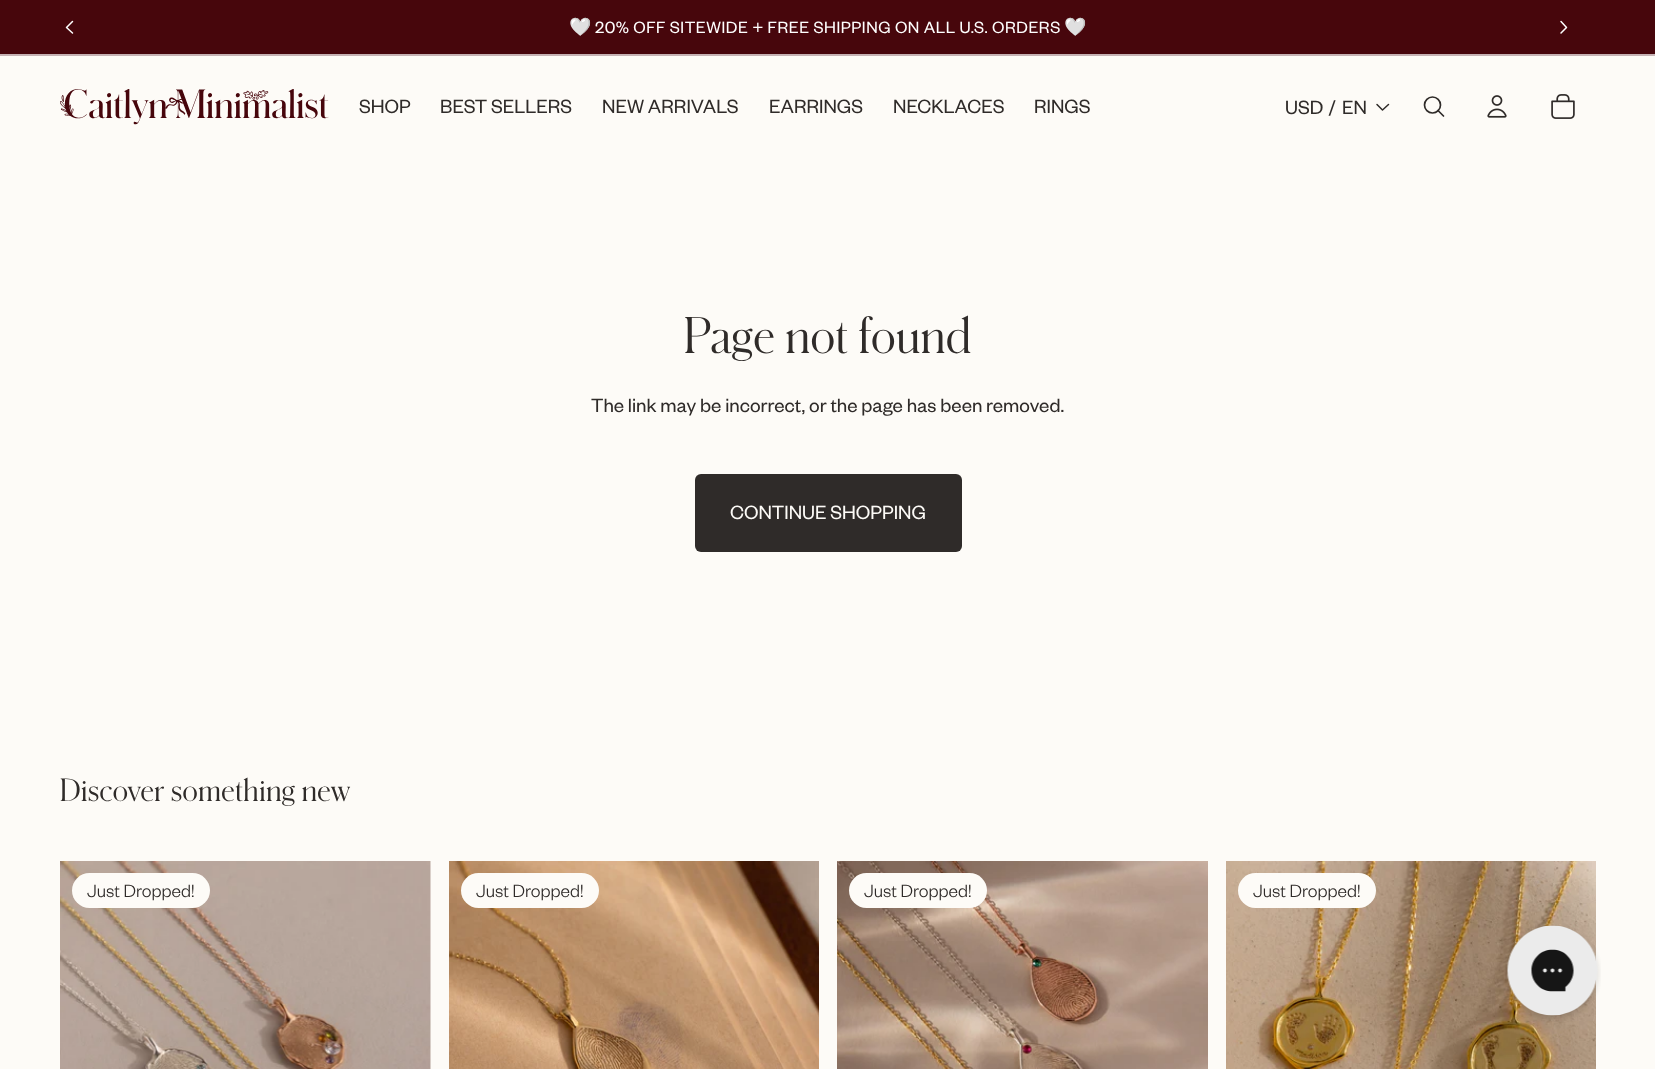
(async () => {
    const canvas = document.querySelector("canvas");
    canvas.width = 1655;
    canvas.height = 1069;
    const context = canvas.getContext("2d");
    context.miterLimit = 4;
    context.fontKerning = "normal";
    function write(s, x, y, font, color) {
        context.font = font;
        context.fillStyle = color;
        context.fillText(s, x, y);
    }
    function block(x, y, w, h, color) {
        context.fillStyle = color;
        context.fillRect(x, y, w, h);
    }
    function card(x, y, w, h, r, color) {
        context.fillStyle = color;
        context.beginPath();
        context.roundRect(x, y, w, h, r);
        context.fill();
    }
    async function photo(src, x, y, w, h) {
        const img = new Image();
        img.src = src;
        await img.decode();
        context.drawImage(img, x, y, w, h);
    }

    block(0, 0, 1655, 1069, "rgb(253, 251, 247)");
    block(0, 0, 1655, 54, "rgb(71, 6, 12)");
    block(0, 54, 1655, 2, "rgb(198, 178, 180)");
    context.letterSpacing = "0.55px";
    write("🤍", 569, 33, "18px Noto Color Emoji", "rgb(255, 255, 255)");
    write("20% OFF SITEWIDE + FREE SHIPPING ON ALL U.S. ORDERS", 595, 33, "18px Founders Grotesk", "rgb(255, 255, 255)");
    write("🤍", 1064, 33, "18px Noto Color Emoji", "rgb(255, 255, 255)");
    context.beginPath();
    context.moveTo(72.5, 21.5);
    context.lineTo(66.5, 27.5);
    context.lineTo(72.5, 33);
    context.strokeStyle = "rgb(255, 255, 255)";
    context.lineWidth = 1.5;
    context.lineCap = "round";
    context.lineJoin = "round";
    context.stroke();
    context.beginPath();
    context.moveTo(1561, 21.5);
    context.lineTo(1566.5, 27.5);
    context.lineTo(1561, 33);
    context.stroke();
    await photo("media/1.png", 60, 89, 269, 36);
    context.letterSpacing = "0px";
    write("SHOP", 359, 113, "21px Founders Grotesk", "rgb(47, 43, 41)");
    write("BEST SELLERS", 440, 113, "21px Founders Grotesk", "rgb(47, 43, 41)");
    write("NEW ARRIVALS", 602, 113, "21px Founders Grotesk", "rgb(47, 43, 41)");
    write("EARRINGS", 769, 113, "21px Founders Grotesk", "rgb(47, 43, 41)");
    write("NECKLACES", 893, 113, "21px Founders Grotesk", "rgb(47, 43, 41)");
    write("RINGS", 1034, 113, "21px Founders Grotesk", "rgb(47, 43, 41)");
    write("USD", 1285, 114, "21px Founders Grotesk", "rgb(47, 43, 41)");
    write("/", 1329, 114, "21px Founders Grotesk", "rgb(47, 43, 41)");
    write("EN", 1342, 114, "21px Founders Grotesk", "rgb(47, 43, 41)");
    context.beginPath();
    context.moveTo(1388.5, 104.5);
    context.lineTo(1382.5, 110);
    context.lineTo(1377, 104.5);
    context.strokeStyle = "rgb(47, 43, 41)";
    context.stroke();
    context.beginPath();
    context.arc(1432.5, 105, 8, 0, Math.PI * 2);
    context.lineWidth = 1.7;
    context.stroke();
    context.beginPath();
    context.moveTo(1438, 110.5);
    context.lineTo(1443.5, 116);
    context.stroke();
    await photo("media/2.png", 1487, 95, 20, 23);
    await photo("media/3.png", 1551, 94, 24, 25);
    write("Page not found", 684, 353, "300 48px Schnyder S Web", "rgb(47, 43, 41)");
    write("The link may be incorrect, or the page has been removed.", 591, 412, "21px Founders Grotesk", "rgb(47, 43, 41)");
    card(695, 474, 267, 78, 6, "rgb(47, 43, 41)");
    write("CONTINUE SHOPPING", 730, 519, "21px Founders Grotesk", "rgb(253, 251, 247)");
    write("Discover something new", 60, 801, "300 30px Schnyder S Web", "rgb(47, 43, 41)");
    await photo("media/4.png", 60, 861, 371, 208);
    card(72, 873, 138, 35, 17.5, "rgb(253, 251, 247)");
    write("Just Dropped!", 87, 897, "300 19.5px Founders Grotesk", "rgb(47, 43, 41)");
    await photo("media/5.png", 449, 861, 370, 208);
    card(461, 873, 138, 35, 17.5, "rgb(253, 251, 247)");
    write("Just Dropped!", 476, 897, "300 19.5px Founders Grotesk", "rgb(47, 43, 41)");
    await photo("media/6.png", 837, 861, 371, 208);
    card(849, 873, 138, 35, 17.5, "rgb(253, 251, 247)");
    write("Just Dropped!", 864, 897, "300 19.5px Founders Grotesk", "rgb(47, 43, 41)");
    await photo("media/7.png", 1226, 861, 370, 208);
    card(1238, 873, 138, 35, 17.5, "rgb(253, 251, 247)");
    write("Just Dropped!", 1253, 897, "300 19.5px Founders Grotesk", "rgb(47, 43, 41)");
    await photo("media/8.png", 1505, 925, 96, 97);
})();
